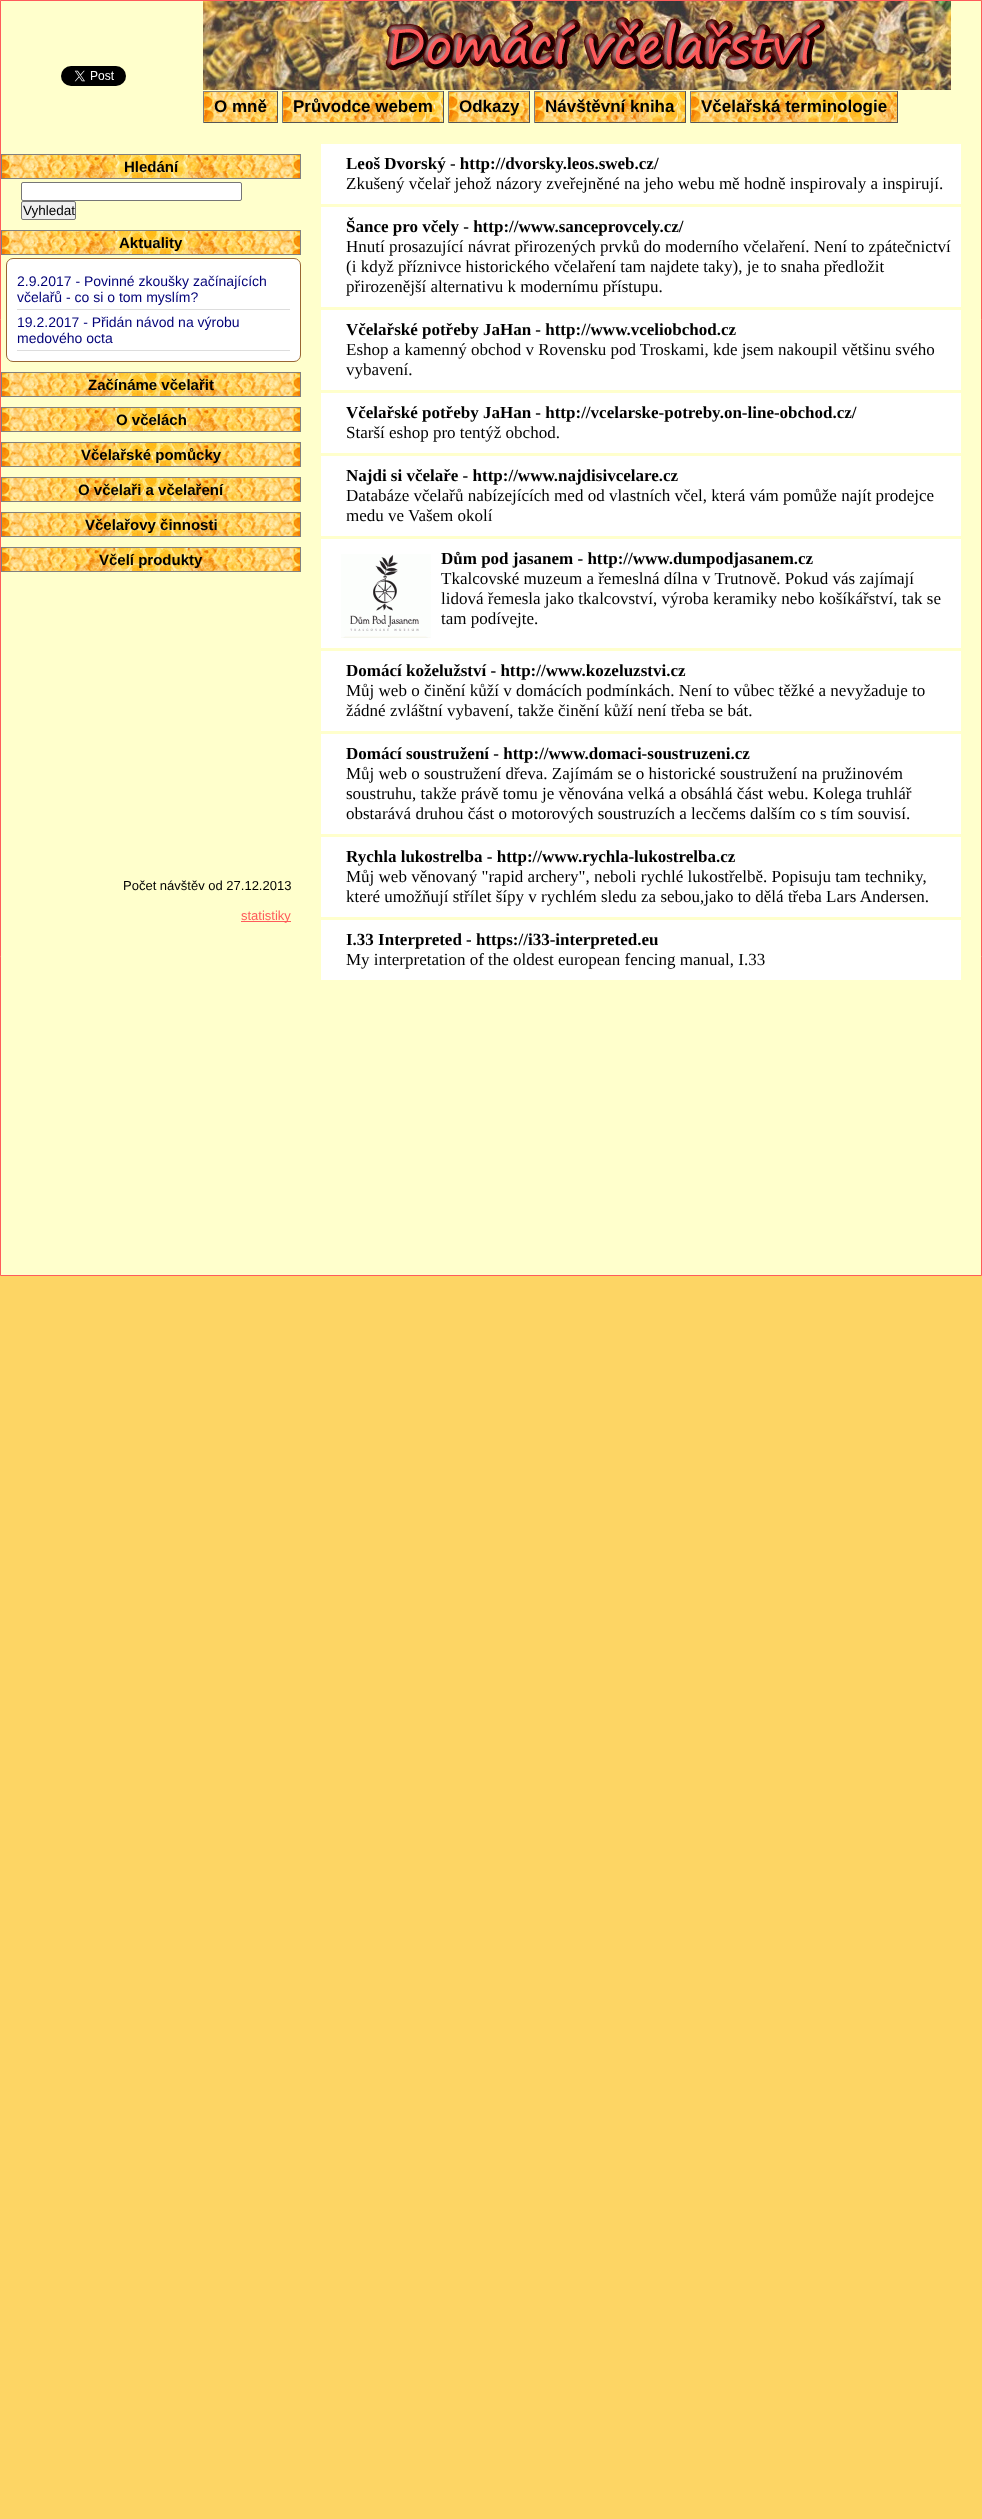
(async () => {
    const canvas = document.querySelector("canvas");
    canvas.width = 982;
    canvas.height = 2519;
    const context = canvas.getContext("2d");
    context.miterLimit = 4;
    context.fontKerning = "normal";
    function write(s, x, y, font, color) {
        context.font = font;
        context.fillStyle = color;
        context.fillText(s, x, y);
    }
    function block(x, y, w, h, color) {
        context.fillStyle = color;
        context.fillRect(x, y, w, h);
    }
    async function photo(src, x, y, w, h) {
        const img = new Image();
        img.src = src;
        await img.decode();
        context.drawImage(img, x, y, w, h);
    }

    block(0, 0, 982, 2519, "rgb(253, 213, 100)");
    context.fillStyle = "rgb(255, 255, 204)";
    context.beginPath();
    context.rect(0.5, 0.5, 981, 1275);
    context.fill();
    context.strokeStyle = "rgb(255, 91, 91)";
    context.stroke();
    await photo("media/1.png", 61, 66, 65, 20);
    await photo("media/2.png", 203, 1, 748, 89);
    await photo("media/3.png", 204, 92, 73, 30);
    block(203, 91, 75, 1, "rgb(128, 128, 128)");
    block(277, 91, 1, 32, "rgb(85, 85, 85)");
    block(203, 122, 75, 1, "rgb(85, 85, 85)");
    block(203, 91, 1, 32, "rgb(128, 128, 128)");
    write("O mně", 214, 112, "bold 17px Liberation Sans", "rgb(0, 0, 0)");
    await photo("media/4.png", 283, 92, 160, 30);
    block(282, 91, 162, 1, "rgb(128, 128, 128)");
    block(443, 91, 1, 32, "rgb(85, 85, 85)");
    block(282, 122, 162, 1, "rgb(85, 85, 85)");
    block(282, 91, 1, 32, "rgb(128, 128, 128)");
    write("Průvodce webem", 293, 112, "bold 17px Liberation Sans", "rgb(0, 0, 0)");
    await photo("media/5.png", 449, 92, 80, 30);
    block(448, 91, 82, 1, "rgb(128, 128, 128)");
    block(529, 91, 1, 32, "rgb(85, 85, 85)");
    block(448, 122, 82, 1, "rgb(85, 85, 85)");
    block(448, 91, 1, 32, "rgb(128, 128, 128)");
    write("Odkazy", 459, 112, "bold 17px Liberation Sans", "rgb(0, 0, 0)");
    await photo("media/6.png", 535, 92, 150, 30);
    block(534, 91, 152, 1, "rgb(128, 128, 128)");
    block(685, 91, 1, 32, "rgb(85, 85, 85)");
    block(534, 122, 152, 1, "rgb(85, 85, 85)");
    block(534, 91, 1, 32, "rgb(128, 128, 128)");
    write("Návštěvní kniha", 545, 112, "bold 17px Liberation Sans", "rgb(0, 0, 0)");
    await photo("media/7.png", 691, 92, 206, 30);
    block(690, 91, 208, 1, "rgb(128, 128, 128)");
    block(897, 91, 1, 32, "rgb(85, 85, 85)");
    block(690, 122, 208, 1, "rgb(85, 85, 85)");
    block(690, 91, 1, 32, "rgb(128, 128, 128)");
    write("Včelařská terminologie", 701, 112, "bold 17px Liberation Sans", "rgb(0, 0, 0)");
    await photo("media/8.png", 2, 155, 298, 23);
    context.strokeStyle = "rgb(128, 128, 128)";
    context.strokeRect(1.5, 154.5, 299, 24);
    write("Hledání", 124, 172, "bold 15px Liberation Sans", "rgb(0, 0, 0)");
    context.fillStyle = "rgb(255, 255, 255)";
    context.beginPath();
    context.roundRect(21.5, 182.5, 220, 18, 1.5);
    context.fill();
    context.strokeStyle = "rgb(118, 118, 118)";
    context.stroke();
    context.fillStyle = "rgb(239, 239, 239)";
    context.beginPath();
    context.roundRect(21.5, 201.5, 54, 18, 1.5);
    context.fill();
    context.stroke();
    write("Vyhledat", 23, 215, "13.5px Liberation Sans", "rgb(0, 0, 0)");
    await photo("media/8.png", 2, 231, 298, 23);
    context.strokeStyle = "rgb(128, 128, 128)";
    context.strokeRect(1.5, 230.5, 299, 24);
    write("Aktuality", 119, 248, "bold 15px Liberation Sans", "rgb(0, 0, 0)");
    context.fillStyle = "rgb(255, 255, 255)";
    context.beginPath();
    context.roundRect(6.5, 258.5, 294, 103, 6.5);
    context.fill();
    context.strokeStyle = "rgb(153, 102, 51)";
    context.stroke();
    block(17, 309, 273, 1, "rgb(221, 221, 221)");
    write("2.9.2017 - Povinné zkoušky začínajících", 17, 286, "14px Liberation Sans", "rgb(0, 0, 119)");
    write("včelařů - co si o tom myslím?", 17, 302, "14px Liberation Sans", "rgb(0, 0, 119)");
    block(17, 350, 273, 1, "rgb(221, 221, 221)");
    write("19.2.2017 - Přidán návod na výrobu", 17, 327, "14px Liberation Sans", "rgb(0, 0, 119)");
    write("medového octa", 17, 343, "14px Liberation Sans", "rgb(0, 0, 119)");
    await photo("media/8.png", 2, 373, 298, 23);
    context.strokeStyle = "rgb(128, 128, 128)";
    context.strokeRect(1.5, 372.5, 299, 24);
    write("Začínáme včelařit", 88, 390, "bold 15px Liberation Sans", "rgb(0, 0, 0)");
    await photo("media/8.png", 2, 408, 298, 23);
    context.strokeRect(1.5, 407.5, 299, 24);
    write("O včelách", 116, 425, "bold 15px Liberation Sans", "rgb(0, 0, 0)");
    await photo("media/8.png", 2, 443, 298, 23);
    context.strokeRect(1.5, 442.5, 299, 24);
    write("Včelařské pomůcky", 81, 460, "bold 15px Liberation Sans", "rgb(0, 0, 0)");
    await photo("media/8.png", 2, 478, 298, 23);
    context.strokeRect(1.5, 477.5, 299, 24);
    write("O včelaři a včelaření", 78, 495, "bold 15px Liberation Sans", "rgb(0, 0, 0)");
    await photo("media/8.png", 2, 513, 298, 23);
    context.strokeRect(1.5, 512.5, 299, 24);
    write("Včelařovy činnosti", 85, 530, "bold 15px Liberation Sans", "rgb(0, 0, 0)");
    await photo("media/8.png", 2, 548, 298, 23);
    context.strokeRect(1.5, 547.5, 299, 24);
    write("Včelí produkty", 99, 565, "bold 15px Liberation Sans", "rgb(0, 0, 0)");
    write("Počet návštěv od 27.12.2013", 123, 890, "13px Liberation Sans", "rgb(0, 0, 0)");
    block(241, 921, 50, 1, "rgb(255, 91, 91)");
    write("statistiky", 241, 920, "13px Liberation Sans", "rgb(255, 91, 91)");
    block(321, 144, 640, 60, "rgb(255, 255, 255)");
    write("Leoš Dvorský - http://dvorsky.leos.sweb.cz/", 346, 169, "bold 17px Liberation Serif", "rgb(0, 0, 0)");
    write("Zkušený včelař jehož názory zveřejněné na jeho webu mě hodně inspirovaly a inspirují.", 346, 189, "17px Liberation Serif", "rgb(0, 0, 0)");
    block(321, 207, 640, 100, "rgb(255, 255, 255)");
    write("Šance pro včely - http://www.sanceprovcely.cz/", 346, 232, "bold 17px Liberation Serif", "rgb(0, 0, 0)");
    write("Hnutí prosazující návrat přirozených prvků do moderního včelaření. Není to zpátečnictví", 346, 252, "17px Liberation Serif", "rgb(0, 0, 0)");
    write("(i když příznivce historického včelaření tam najdete taky), je to snaha předložit", 346, 272, "17px Liberation Serif", "rgb(0, 0, 0)");
    write("přirozenější alternativu k modernímu přístupu.", 346, 292, "17px Liberation Serif", "rgb(0, 0, 0)");
    block(321, 310, 640, 80, "rgb(255, 255, 255)");
    write("Včelařské potřeby JaHan - http://www.vceliobchod.cz", 346, 335, "bold 17px Liberation Serif", "rgb(0, 0, 0)");
    write("Eshop a kamenný obchod v Rovensku pod Troskami, kde jsem nakoupil většinu svého", 346, 355, "17px Liberation Serif", "rgb(0, 0, 0)");
    write("vybavení.", 346, 375, "17px Liberation Serif", "rgb(0, 0, 0)");
    block(321, 393, 640, 60, "rgb(255, 255, 255)");
    write("Včelařské potřeby JaHan - http://vcelarske-potreby.on-line-obchod.cz/", 346, 418, "bold 17px Liberation Serif", "rgb(0, 0, 0)");
    write("Starší eshop pro tentýž obchod.", 346, 438, "17px Liberation Serif", "rgb(0, 0, 0)");
    block(321, 456, 640, 80, "rgb(255, 255, 255)");
    write("Najdi si včelaře - http://www.najdisivcelare.cz", 346, 481, "bold 17px Liberation Serif", "rgb(0, 0, 0)");
    write("Databáze včelařů nabízejících med od vlastních včel, která vám pomůže najít prodejce", 346, 501, "17px Liberation Serif", "rgb(0, 0, 0)");
    write("medu ve Vašem okolí", 346, 521, "17px Liberation Serif", "rgb(0, 0, 0)");
    block(321, 539, 640, 109, "rgb(255, 255, 255)");
    await photo("media/9.png", 341, 554, 90, 84);
    write("Dům pod jasanem - http://www.dumpodjasanem.cz", 441, 564, "bold 17px Liberation Serif", "rgb(0, 0, 0)");
    write("Tkalcovské muzeum a řemeslná dílna v Trutnově. Pokud vás zajímají", 441, 584, "17px Liberation Serif", "rgb(0, 0, 0)");
    write("lidová řemesla jako tkalcovství, výroba keramiky nebo košíkářství, tak se", 441, 604, "17px Liberation Serif", "rgb(0, 0, 0)");
    write("tam podívejte.", 441, 624, "17px Liberation Serif", "rgb(0, 0, 0)");
    block(321, 651, 640, 80, "rgb(255, 255, 255)");
    write("Domácí koželužství - http://www.kozeluzstvi.cz", 346, 676, "bold 17px Liberation Serif", "rgb(0, 0, 0)");
    write("Můj web o činění kůží v domácích podmínkách. Není to vůbec těžké a nevyžaduje to", 346, 696, "17px Liberation Serif", "rgb(0, 0, 0)");
    write("žádné zvláštní vybavení, takže činění kůží není třeba se bát.", 346, 716, "17px Liberation Serif", "rgb(0, 0, 0)");
    block(321, 734, 640, 100, "rgb(255, 255, 255)");
    write("Domácí soustružení - http://www.domaci-soustruzeni.cz", 346, 759, "bold 17px Liberation Serif", "rgb(0, 0, 0)");
    write("Můj web o soustružení dřeva. Zajímám se o historické soustružení na pružinovém", 346, 779, "17px Liberation Serif", "rgb(0, 0, 0)");
    write("soustruhu, takže právě tomu je věnována velká a obsáhlá část webu. Kolega truhlář", 346, 799, "17px Liberation Serif", "rgb(0, 0, 0)");
    write("obstarává druhou část o motorových soustruzích a lecčems dalším co s tím souvisí.", 346, 819, "17px Liberation Serif", "rgb(0, 0, 0)");
    block(321, 837, 640, 80, "rgb(255, 255, 255)");
    write("Rychla lukostrelba - http://www.rychla-lukostrelba.cz", 346, 862, "bold 17px Liberation Serif", "rgb(0, 0, 0)");
    write("Můj web věnovaný \"rapid archery\", neboli rychlé lukostřelbě. Popisuju tam techniky,", 346, 882, "17px Liberation Serif", "rgb(0, 0, 0)");
    write("které umožňují střílet šípy v rychlém sledu za sebou,jako to dělá třeba Lars Andersen.", 346, 902, "17px Liberation Serif", "rgb(0, 0, 0)");
    block(321, 920, 640, 60, "rgb(255, 255, 255)");
    write("I.33 Interpreted - https://i33-interpreted.eu", 346, 945, "bold 17px Liberation Serif", "rgb(0, 0, 0)");
    write("My interpretation of the oldest european fencing manual, I.33", 346, 965, "17px Liberation Serif", "rgb(0, 0, 0)");
})();
